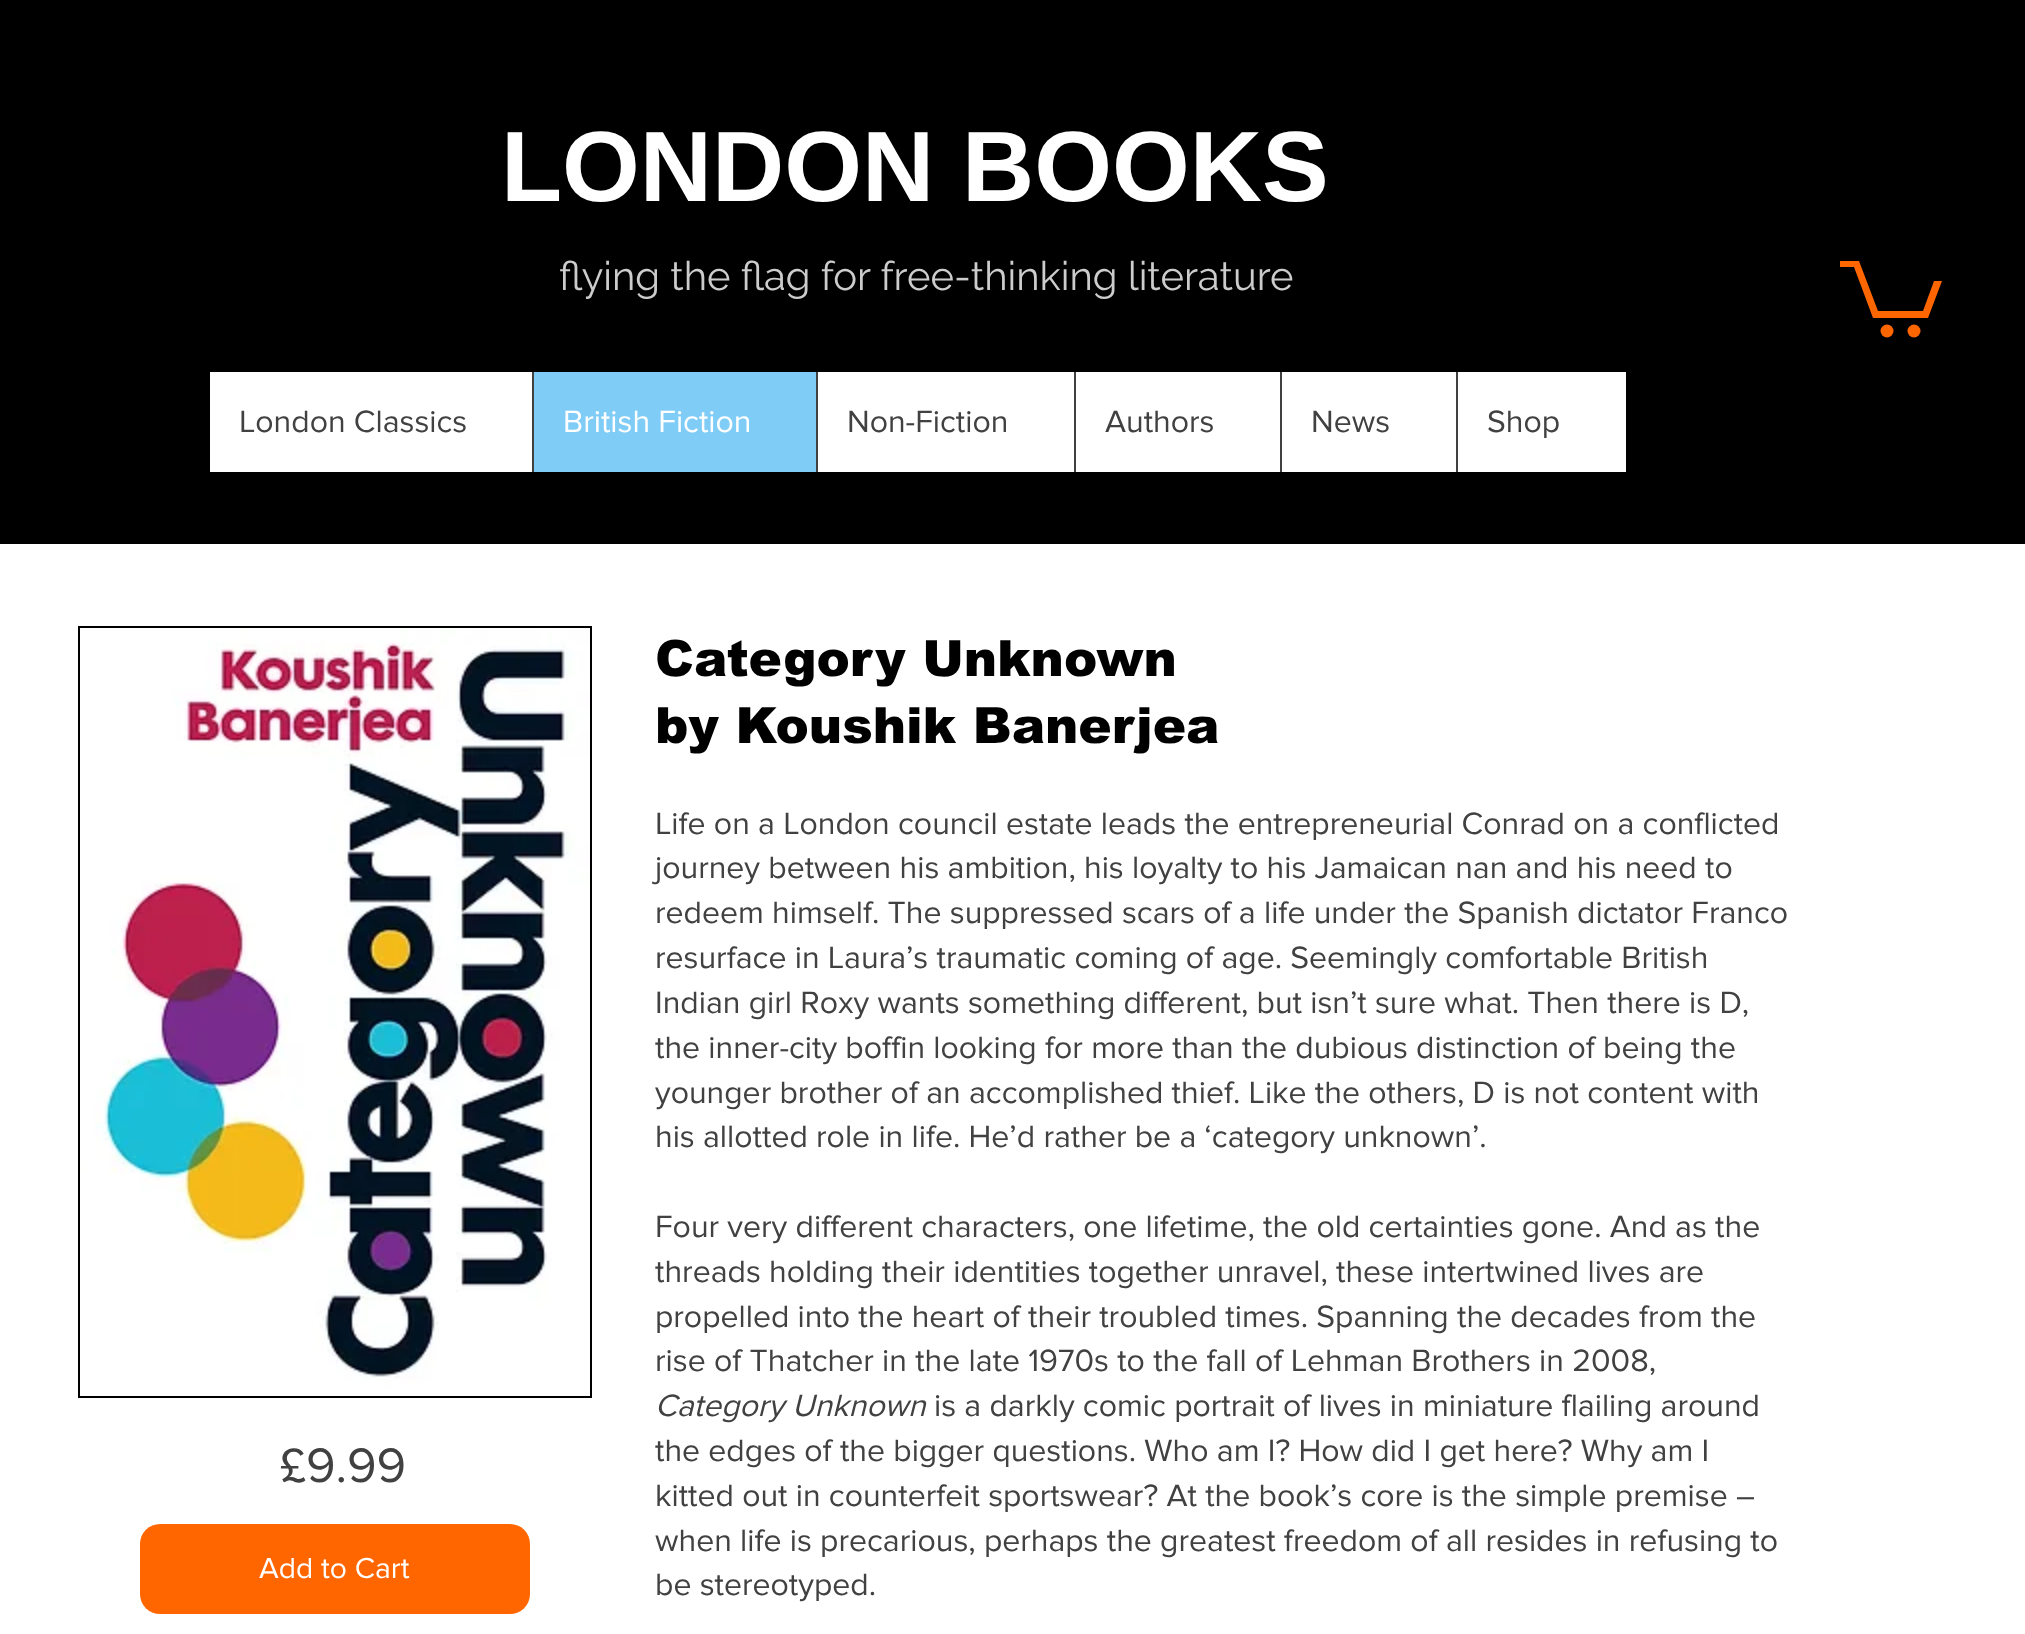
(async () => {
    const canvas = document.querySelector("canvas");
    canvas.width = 2025;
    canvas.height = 1634;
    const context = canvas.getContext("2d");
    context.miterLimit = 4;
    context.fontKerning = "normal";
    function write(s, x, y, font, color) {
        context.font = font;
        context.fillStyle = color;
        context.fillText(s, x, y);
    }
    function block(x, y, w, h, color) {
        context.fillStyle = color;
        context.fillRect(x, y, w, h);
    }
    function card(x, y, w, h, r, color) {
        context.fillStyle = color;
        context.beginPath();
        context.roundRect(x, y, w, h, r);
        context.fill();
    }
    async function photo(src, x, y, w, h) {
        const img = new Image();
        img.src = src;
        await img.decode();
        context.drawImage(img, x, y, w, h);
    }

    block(0, 0, 2025, 1634, "rgb(255, 255, 255)");
    block(0, 0, 2025, 544, "rgb(0, 0, 0)");
    write("LONDON BOOKS", 501, 201, "bold 100px Liberation Sans", "rgb(255, 255, 255)");
    write("flying the flag for free-thinking literature", 559, 290, "40px Raleway", "rgb(204, 204, 204)");
    context.fillStyle = "rgb(255, 102, 0)";
    context.beginPath();
    context.moveTo(1942, 281);
    context.lineTo(1928, 318);
    context.lineTo(1873, 318);
    context.lineTo(1854, 267);
    context.lineTo(1840, 267);
    context.lineTo(1840, 261);
    context.lineTo(1859, 261);
    context.lineTo(1878, 311);
    context.lineTo(1923, 311);
    context.lineTo(1934, 281);
    context.fill();
    context.beginPath();
    context.arc(1914, 331, 6.5, 0, Math.PI * 2);
    context.fill();
    context.beginPath();
    context.arc(1887, 331, 6.5, 0, Math.PI * 2);
    context.fill();
    block(210, 372, 1416, 100, "rgb(255, 255, 255)");
    write("London Classics", 239, 432, "32px 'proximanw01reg'", "rgb(65, 65, 65)");
    block(534, 372, 282, 100, "rgb(127, 204, 247)");
    block(532, 372, 2, 100, "rgb(65, 65, 65)");
    write("British Fiction", 563, 432, "32px 'proximanw01reg'", "rgb(255, 255, 255)");
    block(816, 372, 2, 100, "rgb(65, 65, 65)");
    write("Non-Fiction", 847, 432, "32px 'proximanw01reg'", "rgb(65, 65, 65)");
    block(1074, 372, 2, 100, "rgb(65, 65, 65)");
    write("Authors", 1105, 432, "32px 'proximanw01reg'", "rgb(65, 65, 65)");
    block(1280, 372, 2, 100, "rgb(65, 65, 65)");
    write("News", 1311, 432, "32px 'proximanw01reg'", "rgb(65, 65, 65)");
    block(1456, 372, 2, 100, "rgb(65, 65, 65)");
    write("Shop", 1487, 432, "32px 'proximanw01reg'", "rgb(65, 65, 65)");
    block(78, 626, 514, 772, "rgb(0, 0, 0)");
    await photo("media/1.png", 80, 628, 510, 768);
    write("Category Unknown", 655, 676, "900 50px arial", "rgb(0, 0, 0)");
    write("by Koushik Banerjea", 655, 743, "900 50px arial", "rgb(0, 0, 0)");
    write("Life on a London council estate leads the entrepreneurial Conrad on a conflicted", 655, 834, "32px 'proximanw01reg'", "rgb(65, 65, 65)");
    write("journey between his ambition, his loyalty to his Jamaican nan and his need to", 655, 878, "32px 'proximanw01reg'", "rgb(65, 65, 65)");
    write("redeem himself. The suppressed scars of a life under the Spanish dictator Franco", 655, 923, "32px 'proximanw01reg'", "rgb(65, 65, 65)");
    write("resurface in Laura’s traumatic coming of age. Seemingly comfortable British", 655, 968, "32px 'proximanw01reg'", "rgb(65, 65, 65)");
    write("Indian girl Roxy wants something different, but isn’t sure what. Then there is D,", 655, 1013, "32px 'proximanw01reg'", "rgb(65, 65, 65)");
    write("the inner-city boffin looking for more than the dubious distinction of being the", 655, 1058, "32px 'proximanw01reg'", "rgb(65, 65, 65)");
    write("younger brother of an accomplished thief. Like the others, D is not content with", 655, 1103, "32px 'proximanw01reg'", "rgb(65, 65, 65)");
    write("his allotted role in life. He’d rather be a ‘category unknown’.", 655, 1147, "32px 'proximanw01reg'", "rgb(65, 65, 65)");
    write("Four very different characters, one lifetime, the old certainties gone. And as the", 655, 1237, "32px 'proximanw01reg'", "rgb(65, 65, 65)");
    write("threads holding their identities together unravel, these intertwined lives are", 655, 1282, "32px 'proximanw01reg'", "rgb(65, 65, 65)");
    write("propelled into the heart of their troubled times. Spanning the decades from the", 655, 1327, "32px 'proximanw01reg'", "rgb(65, 65, 65)");
    write("rise of Thatcher in the late 1970s to the fall of Lehman Brothers in 2008,", 655, 1371, "32px 'proximanw01reg'", "rgb(65, 65, 65)");
    write("Category Unknown", 655, 1416, "italic 32px 'proximanw01reg'", "rgb(65, 65, 65)");
    write("is a darkly comic portrait of lives in miniature flailing around", 934, 1416, "32px 'proximanw01reg'", "rgb(65, 65, 65)");
    write("the edges of the bigger questions. Who am I? How did I get here? Why am I", 655, 1461, "32px 'proximanw01reg'", "rgb(65, 65, 65)");
    write("kitted out in counterfeit sportswear? At the book’s core is the simple premise –", 655, 1506, "32px 'proximanw01reg'", "rgb(65, 65, 65)");
    write("when life is precarious, perhaps the greatest freedom of all resides in refusing to", 655, 1551, "32px 'proximanw01reg'", "rgb(65, 65, 65)");
    write("be stereotyped.", 655, 1595, "32px 'proximanw01reg'", "rgb(65, 65, 65)");
    write("£9.99", 280, 1482, "50px 'proximanw01reg'", "rgb(65, 65, 65)");
    card(140, 1524, 390, 90, 20, "rgb(255, 102, 0)");
    write("Add to Cart", 259, 1578, "30px 'proximanw01reg'", "rgb(255, 255, 255)");
})();
